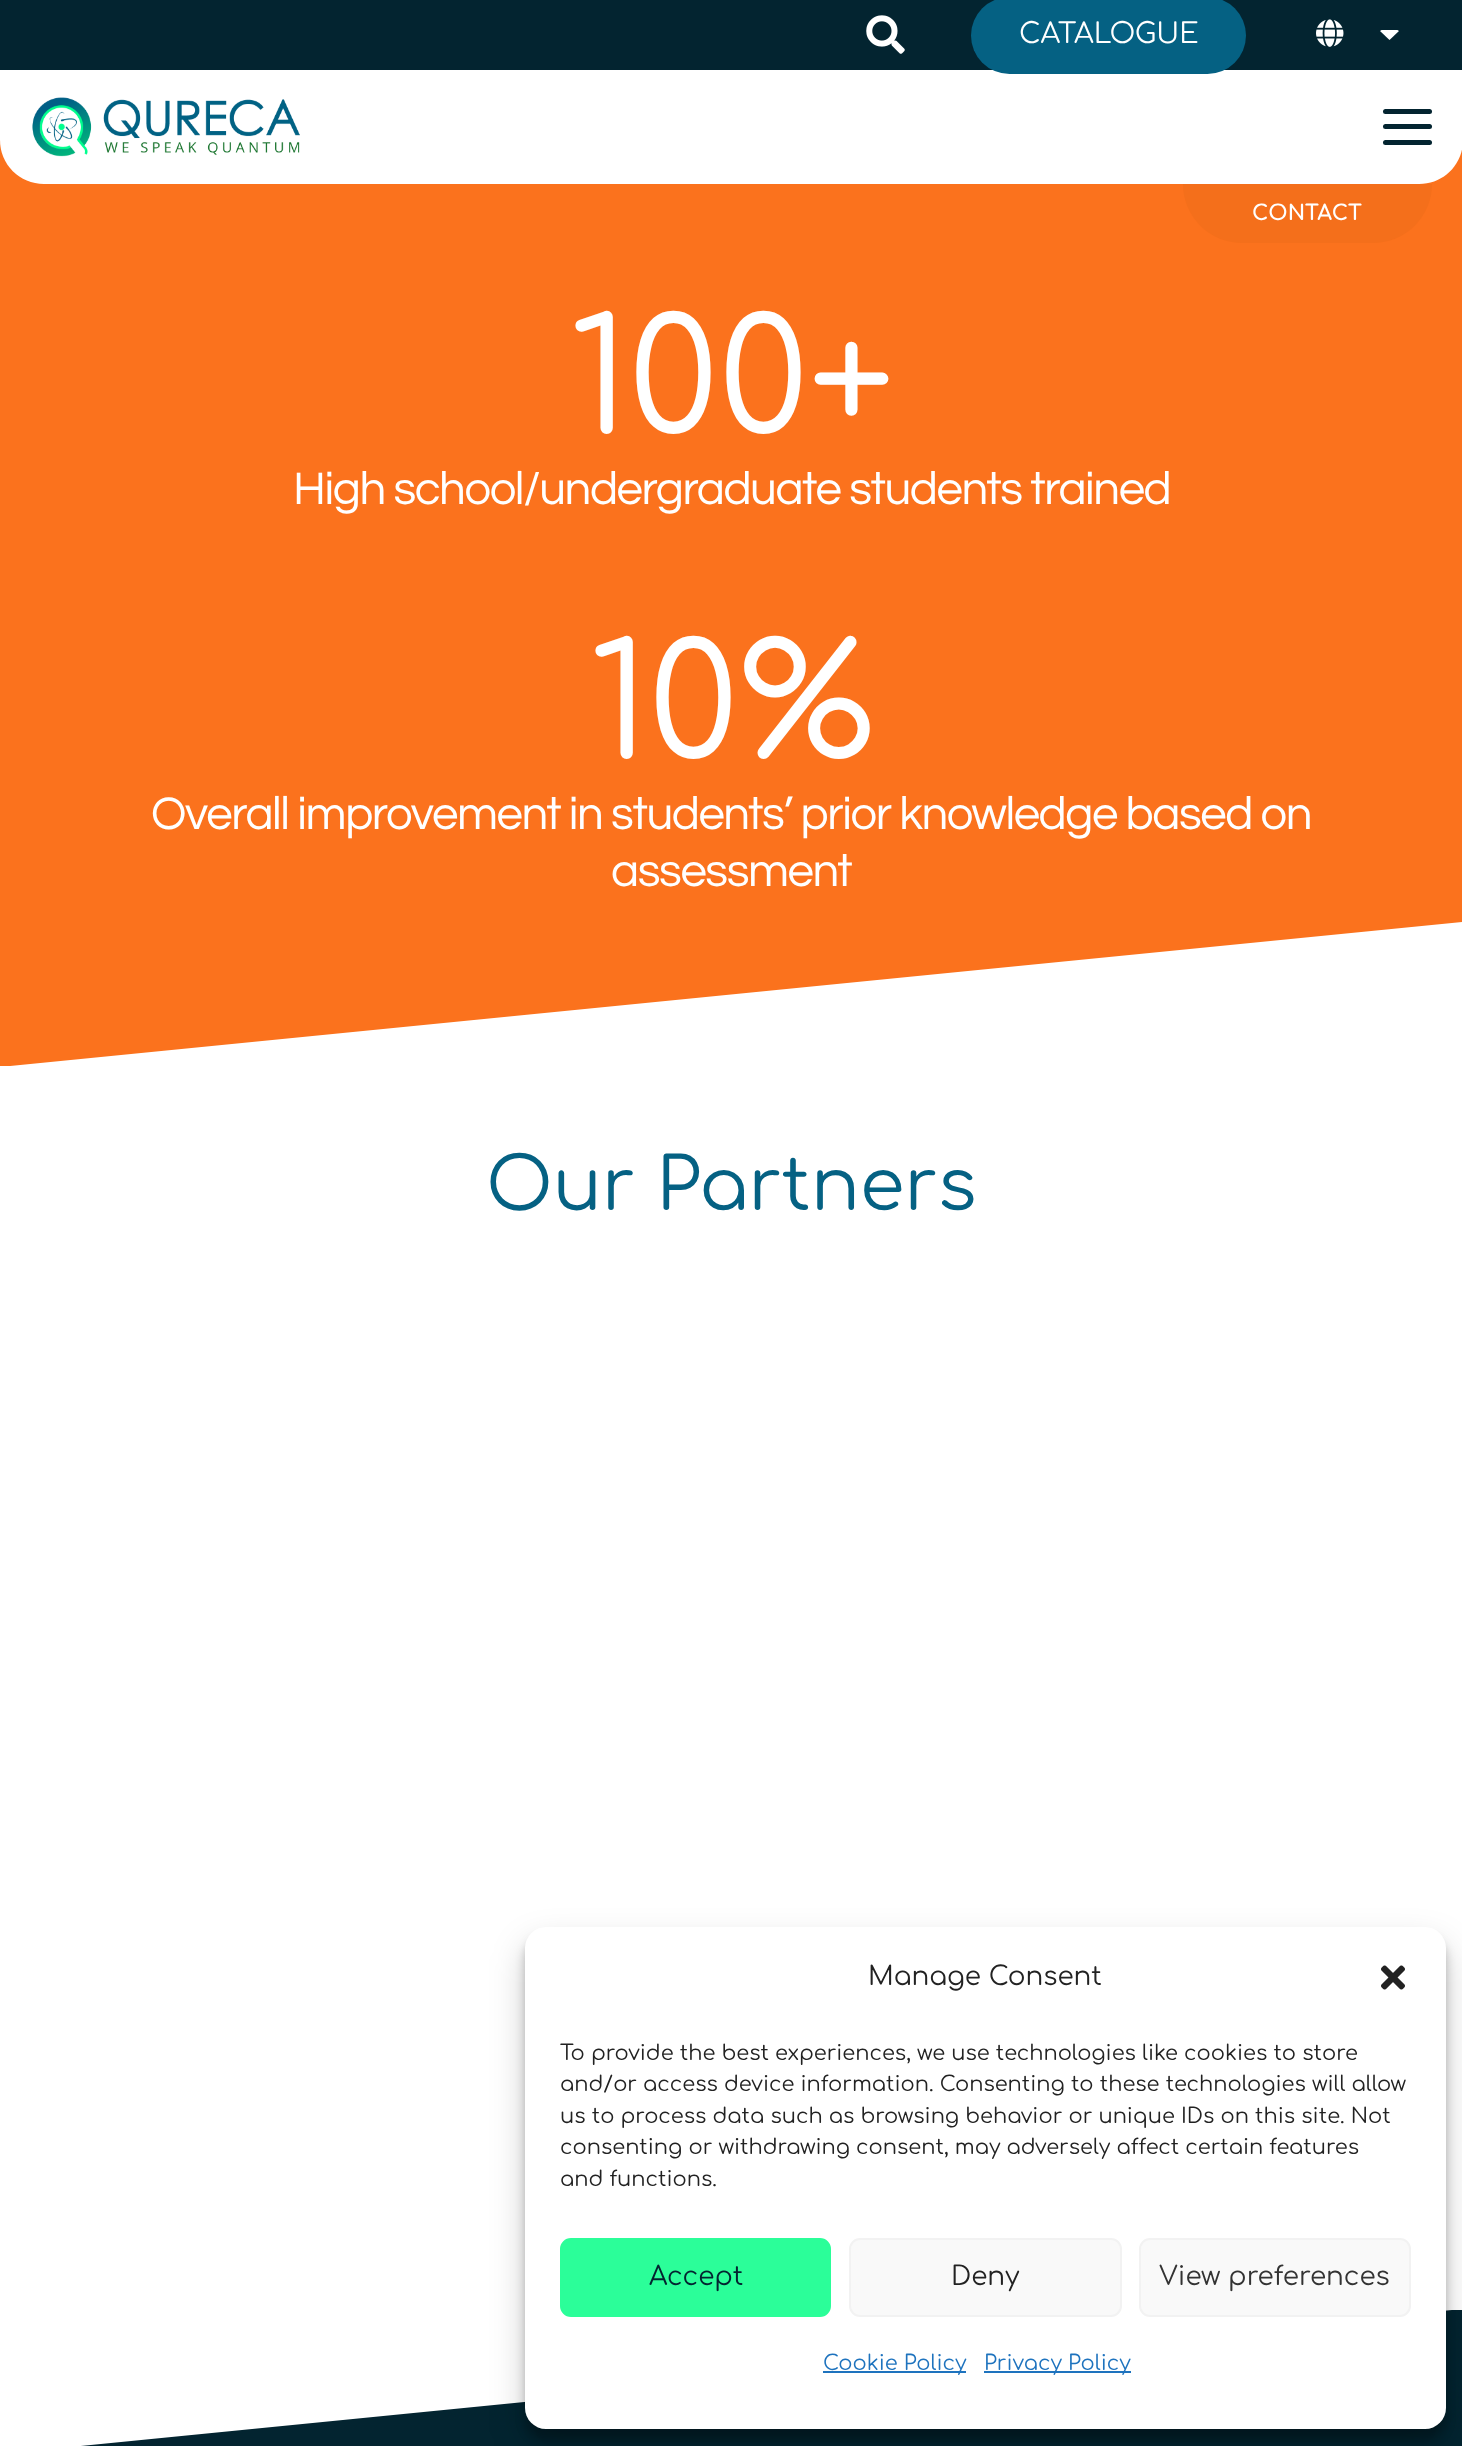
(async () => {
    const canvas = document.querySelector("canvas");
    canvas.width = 1462;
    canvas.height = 2446;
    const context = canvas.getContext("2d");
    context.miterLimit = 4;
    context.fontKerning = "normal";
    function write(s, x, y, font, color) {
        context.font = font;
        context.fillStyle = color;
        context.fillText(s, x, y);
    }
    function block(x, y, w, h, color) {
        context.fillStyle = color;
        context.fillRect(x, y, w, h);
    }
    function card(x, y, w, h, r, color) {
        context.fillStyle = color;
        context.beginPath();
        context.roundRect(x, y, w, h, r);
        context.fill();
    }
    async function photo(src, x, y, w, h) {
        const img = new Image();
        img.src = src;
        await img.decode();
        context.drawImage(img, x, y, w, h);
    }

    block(0, 0, 1462, 2446, "rgb(255, 255, 255)");
    block(0, 0, 1462, 70, "rgb(3, 36, 48)");
    await photo("media/1.png", 866, 15, 39, 39);
    block(0, 140, 1462, 926, "rgb(251, 114, 29)");
    context.fillStyle = "rgb(255, 255, 255)";
    context.beginPath();
    context.moveTo(0, 70);
    context.lineTo(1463, 70);
    context.lineTo(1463, 140);
    context.bezierCurveTo(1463, 164.5, 1443.5, 184, 1419, 184);
    context.lineTo(44, 184);
    context.bezierCurveTo(19.5, 184, 0, 164.5, 0, 140);
    context.closePath();
    context.fill();
    card(971, -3, 275, 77, 38.5, "rgb(5, 97, 131)");
    write("CATALOGUE", 1019, 43, "28px Comfortaa", "rgb(255, 255, 255)");
    await photo("media/2.png", 1316, 19, 28, 28);
    context.beginPath();
    context.moveTo(1382.5, 30);
    context.lineTo(1396.5, 30);
    context.bezierCurveTo(1397.5, 30, 1398.5, 30.5, 1399, 31);
    context.lineTo(1389.5, 40);
    context.lineTo(1380, 31);
    context.bezierCurveTo(1380.5, 30.5, 1381.5, 30, 1382.5, 30);
    context.closePath();
    context.fill();
    await photo("media/3.png", 32, 97, 268, 60);
    card(1383, 124, 49, 5, 2.5, "rgb(3, 36, 48)");
    card(1383, 109, 49, 5, 2.5, "rgb(3, 36, 48)");
    card(1383, 140, 49, 5, 2.5, "rgb(3, 36, 48)");
    context.fillStyle = "rgb(244, 111, 27)";
    context.beginPath();
    context.roundRect(1183, 184, 249, 59, [0, 0, 59, 59]);
    context.fill();
    write("CONTACT", 1252, 220, "bold 21px Comfortaa", "rgb(255, 255, 255)");
    write("100+", 569, 434, "157.5px Comfortaa", "rgb(255, 255, 255)");
    context.letterSpacing = "-1.42px";
    write("High school/undergraduate students trained", 293, 504, "47.25px Questrial", "rgb(255, 255, 255)");
    context.letterSpacing = "0px";
    write("10%", 589, 759, "157.5px Comfortaa", "rgb(255, 255, 255)");
    context.letterSpacing = "-1.42px";
    write("Overall improvement in students’ prior knowledge based on", 151, 829, "47.25px Questrial", "rgb(255, 255, 255)");
    write("assessment", 611, 886, "47.25px Questrial", "rgb(255, 255, 255)");
    context.save();
    context.beginPath();
    context.rect(0, 922, 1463, 144);
    context.clip();
    context.beginPath();
    context.moveTo(0, 1067);
    context.lineTo(0, 1105);
    context.lineTo(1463, 1105);
    context.lineTo(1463, 922);
    context.closePath();
    context.fill();
    context.restore();
    context.letterSpacing = "0px";
    write("Our Partners", 486, 1210, "72.5px Comfortaa", "rgb(5, 97, 131)");
    block(81, 2310, 1381, 136, "rgb(3, 36, 48)");
    context.save();
    context.beginPath();
    context.rect(0, 2308, 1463, 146);
    context.clip();
    context.fillStyle = "rgb(255, 255, 255)";
    context.beginPath();
    context.moveTo(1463, 2309);
    context.lineTo(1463, 2271);
    context.lineTo(0, 2271);
    context.lineTo(0, 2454);
    context.closePath();
    context.fill();
    context.restore();
    context.fillStyle = "rgba(0, 0, 0, 0.23)";
    context.filter = "blur(5px)";
    context.beginPath();
    context.roundRect(525, 1937, 921, 503, 21);
    context.fill();
    context.filter = "none";
    context.fillStyle = "rgba(0, 0, 0, 0.19)";
    context.filter = "blur(17.5px)";
    context.beginPath();
    context.roundRect(525, 1944, 921, 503, 21);
    context.fill();
    context.filter = "none";
    card(525, 1927, 921, 502, 21, "rgb(255, 255, 255)");
    write("Manage Consent", 868, 1985, "26.25px Comfortaa", "rgb(34, 34, 34)");
    await photo("media/4.png", 1381, 1965, 24, 25);
    write("To provide the best experiences, we use technologies like cookies to store", 560, 2060, "21px Comfortaa", "rgb(34, 34, 34)");
    write("and/or access device information. Consenting to these technologies will allow", 560, 2091, "21px Comfortaa", "rgb(34, 34, 34)");
    write("us to process data such as browsing behavior or unique IDs on this site. Not", 560, 2123, "21px Comfortaa", "rgb(34, 34, 34)");
    write("consenting or withdrawing consent, may adversely affect certain features", 560, 2154, "21px Comfortaa", "rgb(34, 34, 34)");
    write("and functions.", 560, 2186, "21px Comfortaa", "rgb(34, 34, 34)");
    context.fillStyle = "rgb(43, 254, 153)";
    context.beginPath();
    context.roundRect(561, 2239, 269, 77, 10);
    context.fill();
    context.strokeStyle = "rgb(43, 254, 153)";
    context.lineWidth = 2;
    context.stroke();
    write("Accept", 649, 2285, "26.25px Comfortaa", "rgb(3, 36, 48)");
    context.fillStyle = "rgb(249, 249, 249)";
    context.beginPath();
    context.roundRect(850, 2239, 271, 77, 10);
    context.fill();
    context.strokeStyle = "rgb(242, 242, 242)";
    context.stroke();
    write("Deny", 951, 2285, "26.25px Comfortaa", "rgb(34, 34, 34)");
    context.fillStyle = "rgb(249, 249, 249)";
    context.beginPath();
    context.roundRect(1140, 2239, 270, 77, 10);
    context.fill();
    context.stroke();
    write("View preferences", 1159, 2285, "26.25px Comfortaa", "rgb(51, 51, 51)");
    block(823, 2371, 143, 2, "rgb(30, 115, 190)");
    write("Cookie Policy", 823, 2370, "21px Comfortaa", "rgb(30, 115, 190)");
    block(984, 2371, 147, 2, "rgb(30, 115, 190)");
    write("Privacy Policy", 984, 2370, "21px Comfortaa", "rgb(30, 115, 190)");
})();
